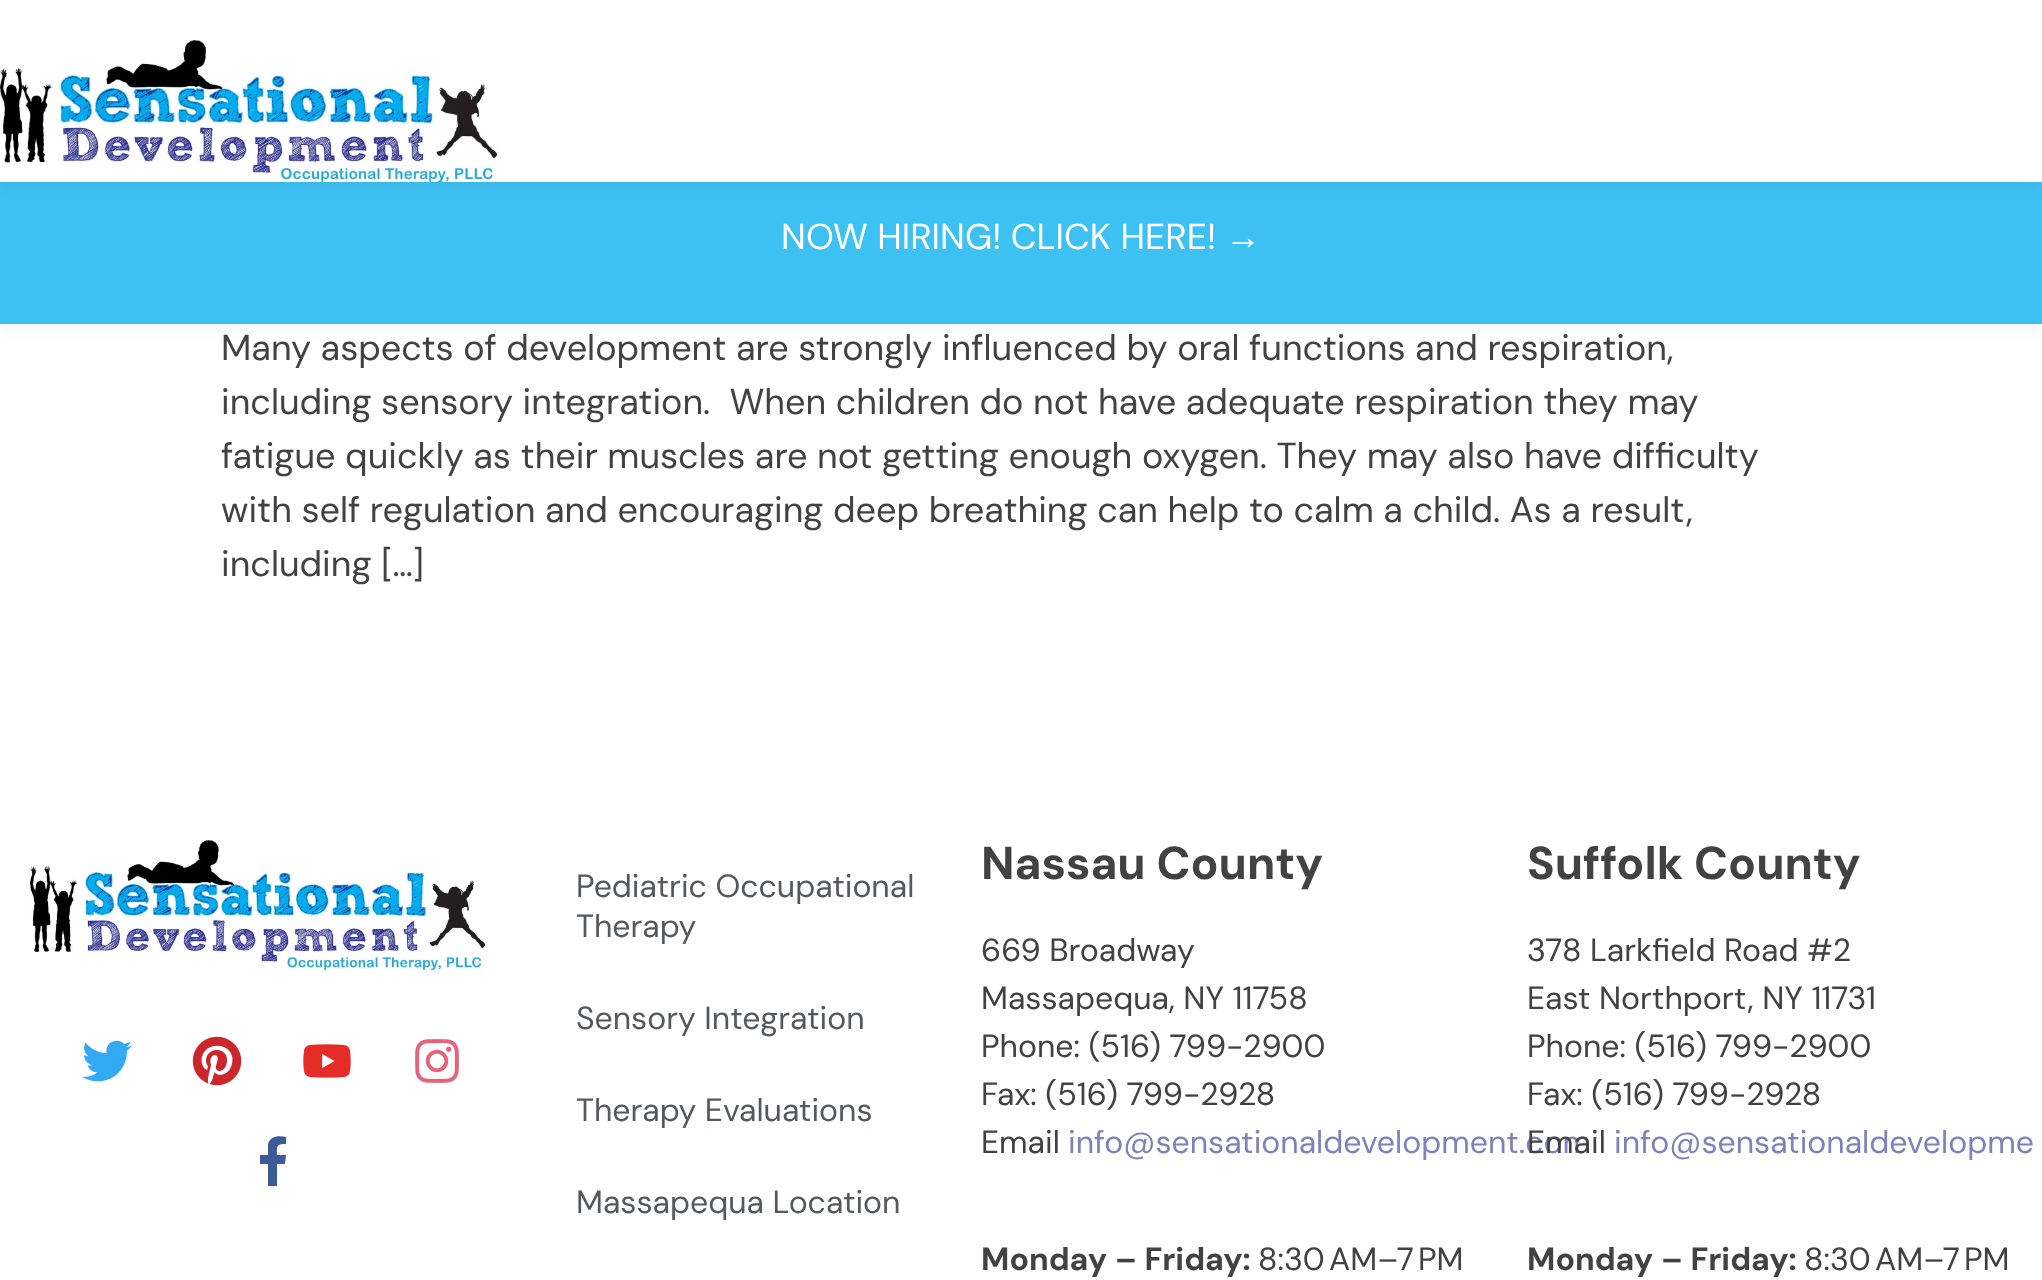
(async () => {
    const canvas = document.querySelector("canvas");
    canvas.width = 2042;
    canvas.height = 1280;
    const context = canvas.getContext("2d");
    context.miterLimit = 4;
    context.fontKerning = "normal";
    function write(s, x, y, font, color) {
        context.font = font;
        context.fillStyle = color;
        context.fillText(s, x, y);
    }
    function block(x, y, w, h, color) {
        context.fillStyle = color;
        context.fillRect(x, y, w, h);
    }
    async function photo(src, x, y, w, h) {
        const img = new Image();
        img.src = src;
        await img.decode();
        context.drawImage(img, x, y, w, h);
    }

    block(0, 0, 2042, 1280, "rgb(255, 255, 255)");
    context.fillStyle = "rgba(0, 0, 0, 0.08)";
    context.filter = "blur(10px)";
    context.beginPath();
    context.rect(0, 182, 2042, 142);
    context.fill();
    context.filter = "none";
    block(0, 182, 2042, 142, "rgb(61, 193, 243)");
    context.fillStyle = "rgba(0, 0, 0, 0.08)";
    context.filter = "blur(10px)";
    context.beginPath();
    context.rect(0, 0, 2042, 182);
    context.fill();
    context.filter = "none";
    block(0, 0, 2042, 182, "rgb(255, 255, 255)");
    await photo("media/1.png", 0, 40, 498, 142);
    write("NOW HIRING! CLICK HERE!", 781, 249, "36px DM Sans", "rgb(255, 255, 255)");
    write("→", 1225, 249, "36px Liberation Sans", "rgb(255, 255, 255)");
    write("Many aspects of development are strongly influenced by oral functions and respiration,", 221, 360, "36px DM Sans", "rgb(66, 66, 66)");
    write("including sensory integration.  When children do not have adequate respiration they may", 221, 414, "36px DM Sans", "rgb(66, 66, 66)");
    write("fatigue quickly as their muscles are not getting enough oxygen. They may also have difficulty", 221, 468, "36px DM Sans", "rgb(66, 66, 66)");
    write("with self regulation and encouraging deep breathing can help to calm a child. As a result,", 221, 522, "36px DM Sans", "rgb(66, 66, 66)");
    write("including […]", 221, 576, "36px DM Sans", "rgb(66, 66, 66)");
    await photo("media/2.png", 30, 840, 456, 130);
    await photo("media/3.png", 82, 1040, 50, 42);
    await photo("media/4.png", 192, 1036, 50, 50);
    await photo("media/5.png", 303, 1044, 48, 34);
    await photo("media/6.png", 415, 1039, 44, 44);
    context.fillStyle = "rgb(61, 90, 153)";
    context.beginPath();
    context.moveTo(285, 1164);
    context.lineTo(286, 1155);
    context.lineTo(277, 1155);
    context.bezierCurveTo(277, 1146, 276, 1144, 286, 1144);
    context.lineTo(286, 1137);
    context.bezierCurveTo(279, 1135, 269, 1136, 268, 1145);
    context.lineTo(268, 1155);
    context.lineTo(260, 1155);
    context.lineTo(260, 1164);
    context.lineTo(268, 1164);
    context.lineTo(268, 1186);
    context.lineTo(277, 1186);
    context.lineTo(277, 1164);
    context.closePath();
    context.fill();
    write("Pediatric Occupational", 576, 897, "32px DM Sans", "rgb(84, 89, 95)");
    write("Therapy", 576, 937, "32px DM Sans", "rgb(84, 89, 95)");
    write("Sensory Integration", 576, 1029, "32px DM Sans", "rgb(84, 89, 95)");
    write("Therapy Evaluations", 576, 1121, "32px DM Sans", "rgb(84, 89, 95)");
    write("Massapequa Location", 576, 1213, "32px DM Sans", "rgb(84, 89, 95)");
    write("Nassau County", 981, 879, "bold 46px DM Sans", "rgb(66, 66, 66)");
    write("669 Broadway", 981, 961, "32px DM Sans", "rgb(66, 66, 66)");
    write("Massapequa, NY 11758", 981, 1009, "32px DM Sans", "rgb(66, 66, 66)");
    write("Phone: (516) 799-2900", 981, 1057, "32px DM Sans", "rgb(66, 66, 66)");
    write("Fax: (516) 799-2928", 981, 1105, "32px DM Sans", "rgb(66, 66, 66)");
    write("Email", 981, 1153, "32px DM Sans", "rgb(66, 66, 66)");
    write("info@sensationaldevelopment.com", 1068, 1153, "32px DM Sans", "rgb(128, 129, 187)");
    write("Monday – Friday:", 981, 1270, "bold 32px DM Sans", "rgb(66, 66, 66)");
    write("8:30 AM–7 PM", 1258, 1270, "32px DM Sans", "rgb(66, 66, 66)");
    write("Suffolk County", 1527, 879, "bold 46px DM Sans", "rgb(66, 66, 66)");
    write("378 Larkfield Road #2", 1527, 961, "32px DM Sans", "rgb(66, 66, 66)");
    write("East Northport, NY 11731", 1527, 1009, "32px DM Sans", "rgb(66, 66, 66)");
    write("Phone: (516) 799-2900", 1527, 1057, "32px DM Sans", "rgb(66, 66, 66)");
    write("Fax: (516) 799-2928", 1527, 1105, "32px DM Sans", "rgb(66, 66, 66)");
    write("Email", 1527, 1153, "32px DM Sans", "rgb(66, 66, 66)");
    write("info@sensationaldevelopme", 1614, 1153, "32px DM Sans", "rgb(128, 129, 187)");
    write("Monday – Friday:", 1527, 1270, "bold 32px DM Sans", "rgb(66, 66, 66)");
    write("8:30 AM–7 PM", 1804, 1270, "32px DM Sans", "rgb(66, 66, 66)");
})();
